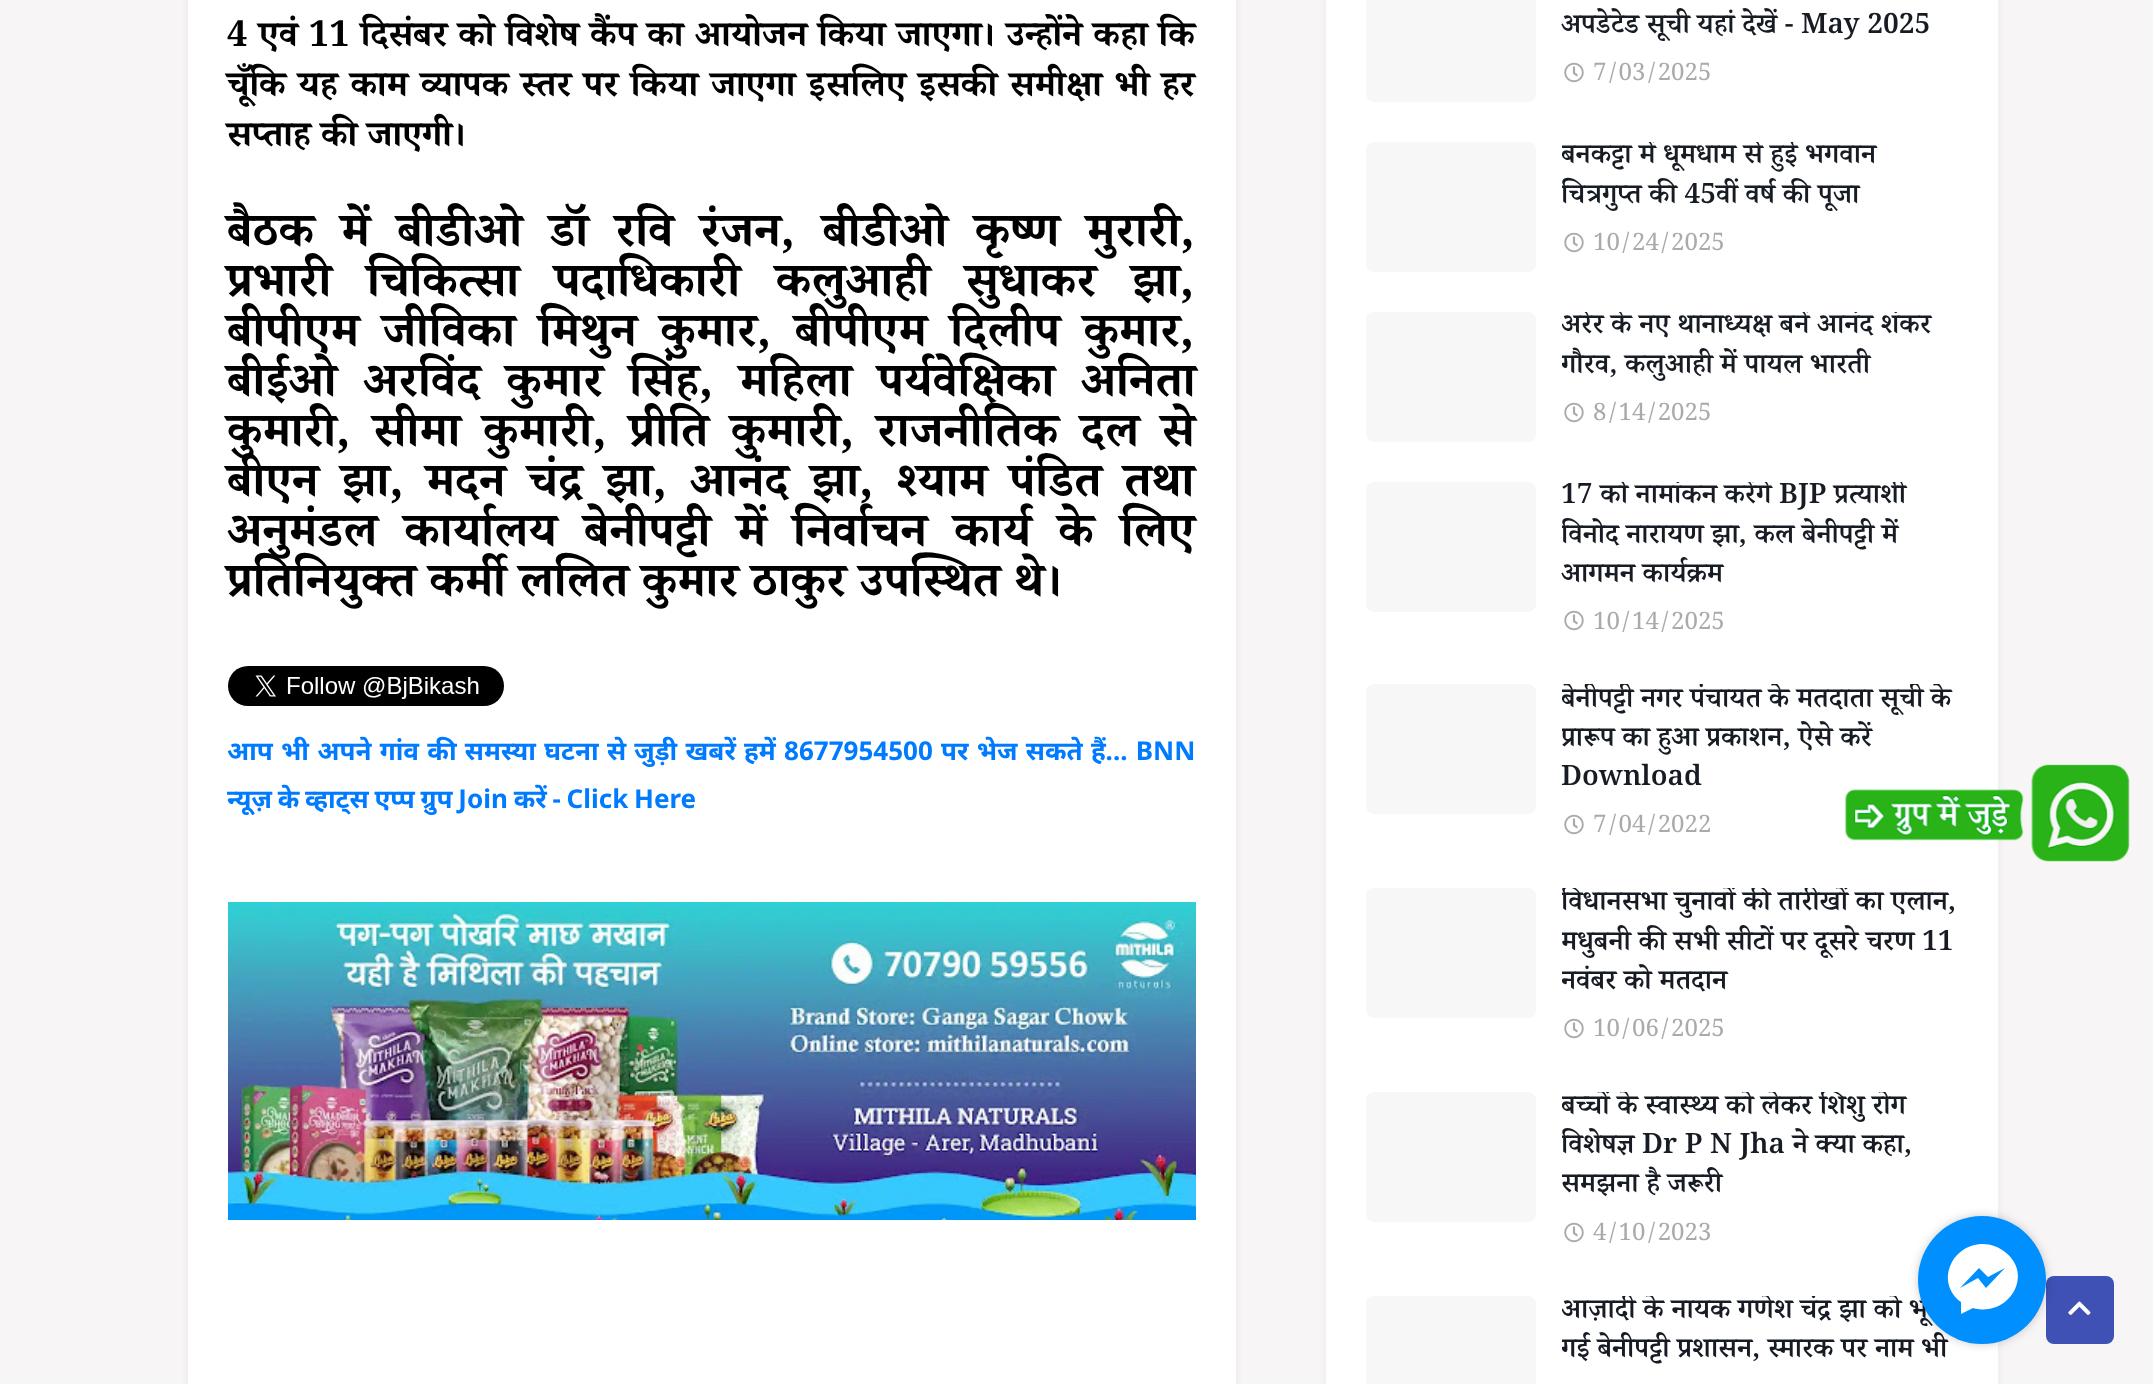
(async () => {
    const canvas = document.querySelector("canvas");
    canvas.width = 2153;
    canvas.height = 1384;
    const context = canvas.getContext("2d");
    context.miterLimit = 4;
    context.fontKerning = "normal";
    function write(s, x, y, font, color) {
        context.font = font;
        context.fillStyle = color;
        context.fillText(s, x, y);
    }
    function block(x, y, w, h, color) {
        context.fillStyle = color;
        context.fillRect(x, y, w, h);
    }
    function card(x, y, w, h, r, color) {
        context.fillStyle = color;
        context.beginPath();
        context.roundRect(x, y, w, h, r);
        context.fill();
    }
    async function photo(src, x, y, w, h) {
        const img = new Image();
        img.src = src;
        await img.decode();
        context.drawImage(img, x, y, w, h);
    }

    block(0, 0, 2153, 1384, "rgb(247, 245, 245)");
    context.fillStyle = "rgba(0, 0, 0, 0.05)";
    context.filter = "blur(4px)";
    context.beginPath();
    context.roundRect(188, -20, 1048, 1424, 8);
    context.fill();
    context.filter = "none";
    block(188, 0, 1048, 1384, "rgb(255, 255, 255)");
    context.wordSpacing = "1px";
    write("4 एवं 11 दिसंबर को विशेष कैंप का आयोजन किया जाएगा। उन्होंने कहा कि", 227, 46, "bold 36px Noto Serif Devanagari", "rgb(0, 0, 0)");
    context.wordSpacing = "2.5px";
    write("चूँकि यह काम व्यापक स्तर पर किया जाएगा इसलिए इसकी समीक्षा भी हर", 227, 96, "bold 36px Noto Serif Devanagari", "rgb(0, 0, 0)");
    context.wordSpacing = "0px";
    write("सप्ताह की जाएगी।", 227, 146, "bold 36px Noto Serif Devanagari", "rgb(0, 0, 0)");
    context.wordSpacing = "13.75px";
    write("बैठक में बीडीओ डॉ रवि रंजन, बीडीओ कृष्ण मुरारी,", 227, 246, "bold 48px Noto Serif Devanagari", "rgb(0, 0, 0)");
    context.wordSpacing = "22px";
    write("प्रभारी चिकित्सा पदाधिकारी कलुआही सुधाकर झा,", 227, 296, "bold 48px Noto Serif Devanagari", "rgb(0, 0, 0)");
    context.wordSpacing = "10px";
    write("बीपीएम जीविका मिथुन कुमार, बीपीएम दिलीप कुमार,", 227, 346, "bold 48px Noto Serif Devanagari", "rgb(0, 0, 0)");
    context.wordSpacing = "12.75px";
    write("बीईओ अरविंद कुमार सिंह, महिला पर्यवेक्षिका अनिता", 227, 396, "bold 48px Noto Serif Devanagari", "rgb(0, 0, 0)");
    context.wordSpacing = "9px";
    write("कुमारी, सीमा कुमारी, प्रीति कुमारी, राजनीतिक दल से", 227, 446, "bold 48px Noto Serif Devanagari", "rgb(0, 0, 0)");
    write("बीएन झा, मदन चंद्र झा, आनंद झा, श्याम पंडित तथा", 227, 496, "bold 48px Noto Serif Devanagari", "rgb(0, 0, 0)");
    context.wordSpacing = "13.5px";
    write("अनुमंडल कार्यालय बेनीपट्टी में निर्वाचन कार्य के लिए", 227, 546, "bold 48px Noto Serif Devanagari", "rgb(0, 0, 0)");
    context.wordSpacing = "0px";
    write("प्रतिनियुक्त कर्मी ललित कुमार ठाकुर उपस्थित थे।", 227, 596, "bold 48px Noto Serif Devanagari", "rgb(0, 0, 0)");
    await photo("media/1.png", 228, 666, 276, 40);
    context.wordSpacing = "1.5px";
    write("आप भी अपने गांव की समस्या घटना से जुड़ी खबरें हमें 8677954500 पर भेज सकते हैं... BNN", 227, 760, "bold 26px Noto Sans", "rgb(0, 123, 255)");
    context.wordSpacing = "-1px";
    write("न्यूज़ के व्हाट्स एप्प ग्रुप Join करें - Click Here", 227, 808, "bold 26px Noto Sans", "rgb(0, 123, 255)");
    await photo("media/2.png", 228, 902, 968, 318);
    context.fillStyle = "rgba(0, 0, 0, 0.05)";
    context.filter = "blur(4px)";
    context.beginPath();
    context.roundRect(1326, -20, 672, 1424, 8);
    context.fill();
    context.filter = "none";
    block(1326, 0, 672, 1384, "rgb(255, 255, 255)");
    card(1366, -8, 170, 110, 8, "rgb(247, 247, 247)");
    context.wordSpacing = "0px";
    write("अपडेटेड सूची यहां देखें - May 2025", 1561, 33, "600 28px Noto Serif Devanagari", "rgb(23, 28, 36)");
    await photo("media/3.png", 1564, 62, 20, 21);
    write("7/03/2025", 1593, 80, "24px Noto Serif Devanagari", "rgb(170, 170, 170)");
    card(1366, 142, 170, 130, 8, "rgb(247, 247, 247)");
    context.save();
    context.beginPath();
    context.rect(1562, 142, 396, 124);
    context.clip();
    write("बनकट्टा में धूमधाम से हुई भगवान", 1561, 163, "600 28px Noto Serif Devanagari", "rgb(23, 28, 36)");
    write("चित्रगुप्त की 45वीं वर्ष की पूजा", 1561, 203, "600 28px Noto Serif Devanagari", "rgb(23, 28, 36)");
    context.restore();
    await photo("media/3.png", 1564, 232, 20, 21);
    write("10/24/2025", 1593, 250, "24px Noto Serif Devanagari", "rgb(170, 170, 170)");
    card(1366, 312, 170, 130, 8, "rgb(247, 247, 247)");
    context.save();
    context.beginPath();
    context.rect(1562, 312, 396, 124);
    context.clip();
    write("अरेर के नए थानाध्यक्ष बनें आनंद शंकर", 1561, 333, "600 28px Noto Serif Devanagari", "rgb(23, 28, 36)");
    write("गौरव, कलुआही में पायल भारती", 1561, 373, "600 28px Noto Serif Devanagari", "rgb(23, 28, 36)");
    context.restore();
    await photo("media/3.png", 1564, 402, 20, 21);
    write("8/14/2025", 1593, 420, "24px Noto Serif Devanagari", "rgb(170, 170, 170)");
    card(1366, 482, 170, 130, 8, "rgb(247, 247, 247)");
    context.save();
    context.beginPath();
    context.rect(1562, 482, 396, 162);
    context.clip();
    write("17 को नामांकन करेंगे BJP प्रत्याशी", 1561, 503, "600 28px Noto Serif Devanagari", "rgb(23, 28, 36)");
    write("विनोद नारायण झा, कल बेनीपट्टी में", 1561, 543, "600 28px Noto Serif Devanagari", "rgb(23, 28, 36)");
    context.restore();
    write("आगमन कार्यक्रम", 1561, 582, "600 28px Noto Serif Devanagari", "rgb(23, 28, 36)");
    await photo("media/3.png", 1564, 610, 20, 21);
    write("10/14/2025", 1593, 629, "24px Noto Serif Devanagari", "rgb(170, 170, 170)");
    card(1366, 684, 170, 130, 8, "rgb(247, 247, 247)");
    context.save();
    context.beginPath();
    context.rect(1562, 684, 396, 164);
    context.clip();
    write("बेनीपट्टी नगर पंचायत के मतदाता सूची के", 1561, 707, "600 28px Noto Serif Devanagari", "rgb(23, 28, 36)");
    write("प्रारूप का हुआ प्रकाशन, ऐसे करें", 1561, 746, "600 28px Noto Serif Devanagari", "rgb(23, 28, 36)");
    context.restore();
    write("Download", 1561, 785, "600 28px Noto Serif Devanagari", "rgb(23, 28, 36)");
    await photo("media/3.png", 1564, 814, 20, 21);
    write("7/04/2022", 1593, 832, "24px Noto Serif Devanagari", "rgb(170, 170, 170)");
    card(1366, 888, 170, 130, 8, "rgb(247, 247, 247)");
    context.save();
    context.beginPath();
    context.rect(1562, 888, 396, 164);
    context.clip();
    write("विधानसभा चुनावों की तारीखों का एलान,", 1561, 910, "600 28px Noto Serif Devanagari", "rgb(23, 28, 36)");
    write("मधुबनी की सभी सीटों पर दूसरे चरण 11", 1561, 950, "600 28px Noto Serif Devanagari", "rgb(23, 28, 36)");
    write("नवंबर को मतदान", 1561, 989, "600 28px Noto Serif Devanagari", "rgb(23, 28, 36)");
    context.restore();
    await photo("media/3.png", 1564, 1018, 20, 21);
    write("10/06/2025", 1593, 1036, "24px Noto Serif Devanagari", "rgb(170, 170, 170)");
    card(1366, 1092, 170, 130, 8, "rgb(247, 247, 247)");
    context.save();
    context.beginPath();
    context.rect(1562, 1092, 396, 164);
    context.clip();
    write("बच्चों के स्वास्थ्य को लेकर शिशु रोग", 1561, 1114, "600 28px Noto Serif Devanagari", "rgb(23, 28, 36)");
    write("विशेषज्ञ Dr P N Jha ने क्या कहा,", 1561, 1153, "600 28px Noto Serif Devanagari", "rgb(23, 28, 36)");
    write("समझना है जरूरी", 1561, 1192, "600 28px Noto Serif Devanagari", "rgb(23, 28, 36)");
    context.restore();
    await photo("media/3.png", 1564, 1222, 20, 21);
    write("4/10/2023", 1593, 1240, "24px Noto Serif Devanagari", "rgb(170, 170, 170)");
    card(1366, 1296, 170, 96, 8, "rgb(247, 247, 247)");
    context.save();
    context.beginPath();
    context.rect(1562, 1296, 396, 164);
    context.clip();
    write("आज़ादी के नायक गणेश चंद्र झा को भू", 1561, 1318, "600 28px Noto Serif Devanagari", "rgb(23, 28, 36)");
    write("गई बेनीपट्टी प्रशासन, स्मारक पर नाम भी", 1561, 1357, "600 28px Noto Serif Devanagari", "rgb(23, 28, 36)");
    context.restore();
    await photo("media/4.png", 1845, 764, 285, 98);
    card(2046, 1276, 68, 68, 8, "rgb(63, 81, 181)");
    context.fillStyle = "rgba(0, 0, 0, 0.2)";
    context.filter = "blur(5px)";
    context.beginPath();
    context.roundRect(1918, 1216, 128, 128, 64);
    context.fill();
    context.filter = "none";
    context.fillStyle = "rgb(0, 143, 255)";
    context.beginPath();
    context.arc(1982, 1280, 64, 0, Math.PI * 2);
    context.fill();
    context.fillStyle = "rgb(255, 255, 255)";
    context.beginPath();
    context.moveTo(1983, 1244);
    context.bezierCurveTo(1951, 1244, 1935, 1283, 1961, 1302);
    context.lineTo(1961, 1314);
    context.lineTo(1973, 1308);
    context.bezierCurveTo(2008, 1318, 2035, 1275, 2005, 1252);
    context.bezierCurveTo(1999, 1247, 1991, 1244, 1983, 1244);
    context.closePath();
    context.moveTo(1986, 1288);
    context.lineTo(1978, 1278);
    context.lineTo(1960, 1288);
    context.lineTo(1979, 1268);
    context.lineTo(1988, 1277);
    context.lineTo(2005, 1268);
    context.closePath();
    context.fill();
    await photo("media/5.png", 2068, 1301, 23, 14);
})();
